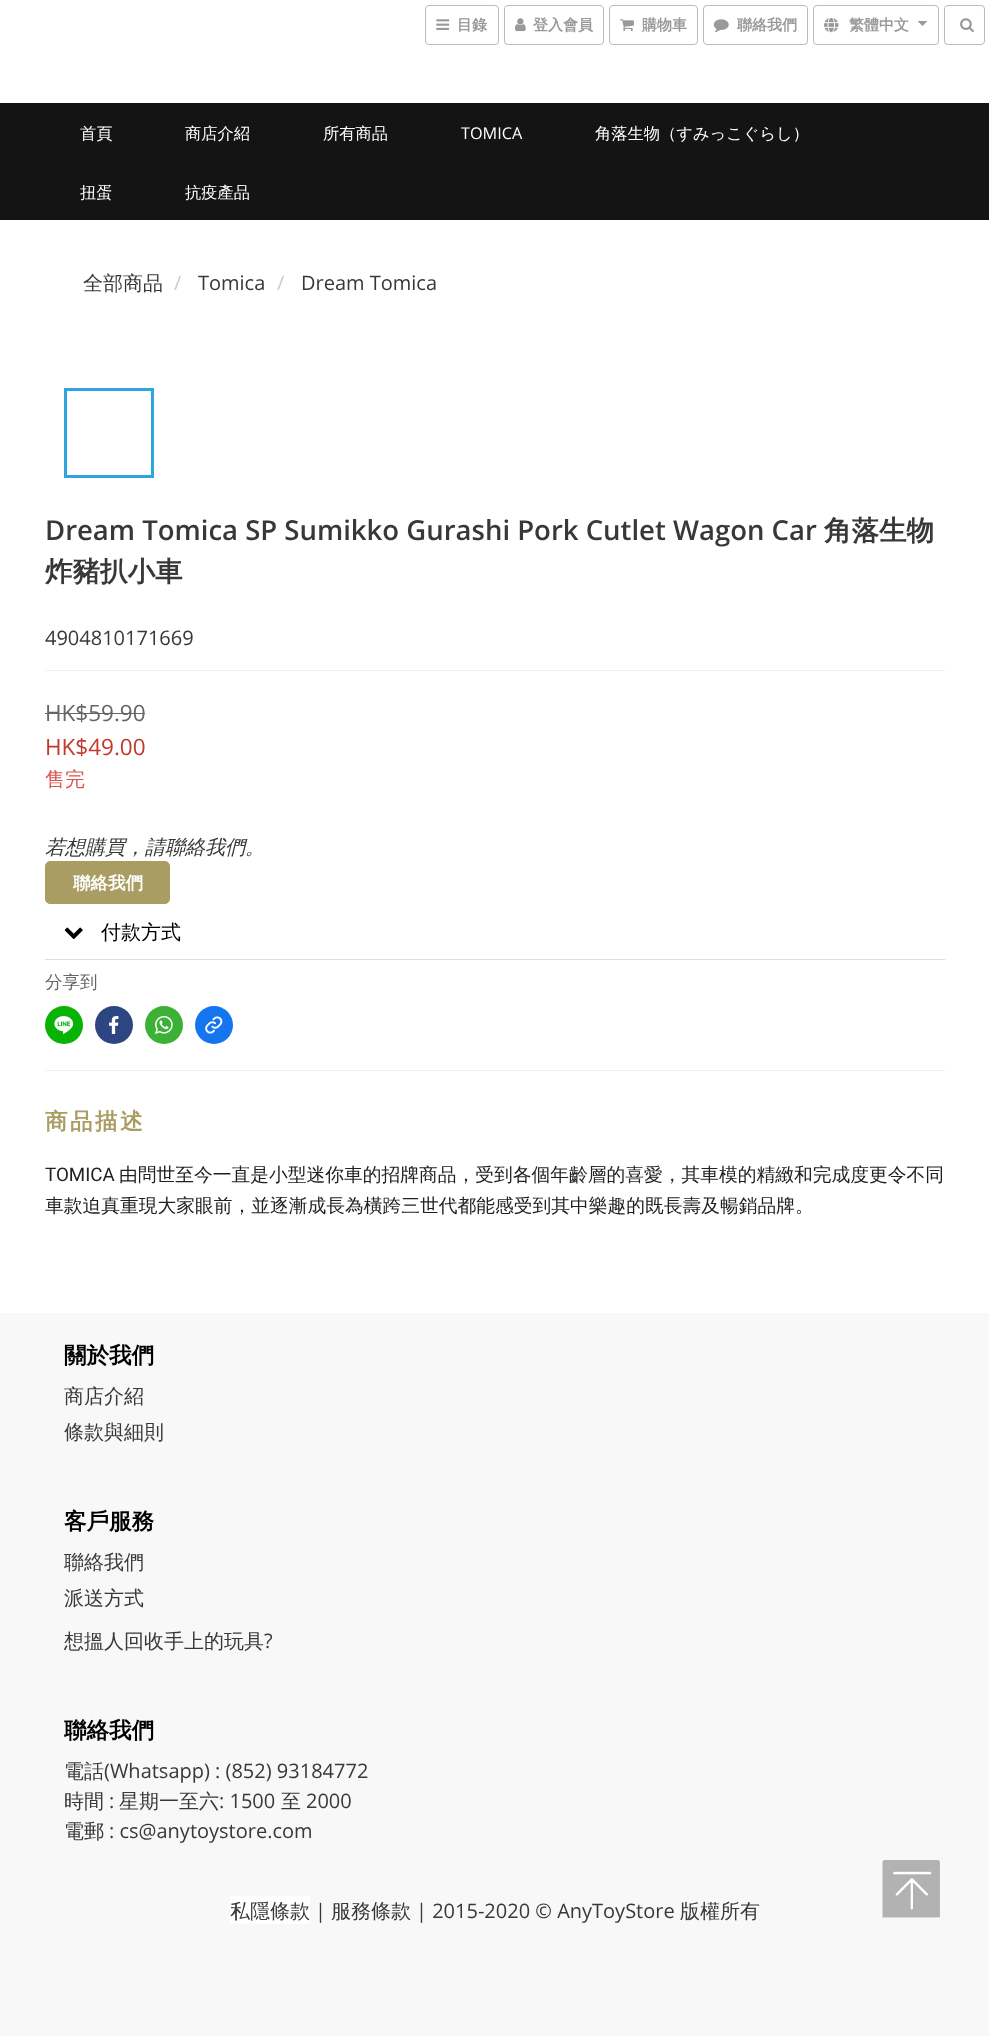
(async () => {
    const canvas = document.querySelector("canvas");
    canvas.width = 989;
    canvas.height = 2036;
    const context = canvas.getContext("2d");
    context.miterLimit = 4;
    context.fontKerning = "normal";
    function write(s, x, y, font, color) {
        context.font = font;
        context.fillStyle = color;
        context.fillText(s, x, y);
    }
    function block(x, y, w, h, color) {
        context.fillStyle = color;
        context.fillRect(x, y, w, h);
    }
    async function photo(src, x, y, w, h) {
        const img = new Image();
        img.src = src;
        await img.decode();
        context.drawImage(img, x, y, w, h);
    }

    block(0, 0, 989, 2036, "rgb(255, 255, 255)");
    context.beginPath();
    context.roundRect(425.5, 5.5, 73, 39, 3.5);
    context.strokeStyle = "rgb(187, 187, 187)";
    context.stroke();
    await photo("media/1.png", 436, 19, 14, 11);
    write("目錄", 457, 30, "bold 15px WenQuanYi Zen Hei", "rgb(153, 153, 153)");
    context.beginPath();
    context.roundRect(504.5, 5.5, 99, 39, 3.5);
    context.stroke();
    await photo("media/2.png", 515, 18, 11, 14);
    write("登入會員", 533, 30, "bold 15px WenQuanYi Zen Hei", "rgb(153, 153, 153)");
    context.beginPath();
    context.roundRect(609.5, 5.5, 88, 39, 3.5);
    context.stroke();
    await photo("media/3.png", 620, 19, 14, 12);
    write("購物車", 642, 30, "bold 15px WenQuanYi Zen Hei", "rgb(153, 153, 153)");
    context.beginPath();
    context.roundRect(703.5, 5.5, 104, 39, 3.5);
    context.stroke();
    await photo("media/4.png", 713, 19, 16, 14);
    write("聯絡我們", 737, 30, "bold 15px WenQuanYi Zen Hei", "rgb(153, 153, 153)");
    context.beginPath();
    context.roundRect(813.5, 5.5, 125, 39, 3.5);
    context.stroke();
    await photo("media/5.png", 824, 18, 15, 15);
    write("繁體中文", 849, 30, "bold 15px WenQuanYi Zen Hei", "rgb(153, 153, 153)");
    context.beginPath();
    context.moveTo(917.5, 21);
    context.lineTo(927.5, 21);
    context.lineTo(922.5, 26);
    context.closePath();
    context.fill();
    context.beginPath();
    context.roundRect(944.5, 5.5, 40, 39, 3.5);
    context.stroke();
    await photo("media/6.png", 960, 18, 14, 15);
    block(0, 103, 989, 117, "rgb(20, 20, 20)");
    write("首頁", 80, 139, "500 16.25px WenQuanYi Zen Hei", "rgb(255, 255, 255)");
    write("商店介紹", 185, 139, "500 16.25px WenQuanYi Zen Hei", "rgb(255, 255, 255)");
    write("所有商品", 323, 139, "500 16.25px WenQuanYi Zen Hei", "rgb(255, 255, 255)");
    write("TOMICA", 461, 139, "16.25px Open Sans", "rgb(255, 255, 255)");
    write("角落生物（すみっこぐらし）", 595, 139, "500 16.25px WenQuanYi Zen Hei", "rgb(255, 255, 255)");
    write("扭蛋", 80, 198, "500 16.25px WenQuanYi Zen Hei", "rgb(255, 255, 255)");
    write("抗疫產品", 185, 198, "500 16.25px WenQuanYi Zen Hei", "rgb(255, 255, 255)");
    write("全部商品", 83, 290, "500 20px WenQuanYi Zen Hei", "rgb(56, 56, 56)");
    write("/", 174, 290, "20px Open Sans", "rgb(204, 204, 204)");
    write("Tomica", 198, 290, "20px Open Sans", "rgb(56, 56, 56)");
    write("/", 277, 290, "20px Open Sans", "rgb(204, 204, 204)");
    write("Dream Tomica", 301, 290, "20px Open Sans", "rgb(56, 56, 56)");
    context.strokeStyle = "rgb(48, 164, 225)";
    context.lineWidth = 3;
    context.strokeRect(65.5, 389.5, 87, 87);
    write("Dream Tomica SP Sumikko Gurashi Pork Cutlet Wagon Car", 45, 540, "600 27.5px Open Sans", "rgb(56, 56, 56)");
    write("角落生物", 824, 540, "bold 27.5px WenQuanYi Zen Hei", "rgb(56, 56, 56)");
    write("炸豬扒小車", 45, 581, "bold 27.5px WenQuanYi Zen Hei", "rgb(56, 56, 56)");
    write("4904810171669", 45, 645, "20px Open Sans", "rgb(56, 56, 56)");
    block(45, 670, 900, 1, "rgb(238, 238, 238)");
    write("HK$59.90", 45, 721, "22.5px Open Sans", "rgb(102, 102, 102)");
    block(45, 713, 100, 1, "rgb(102, 102, 102)");
    write("HK$49.00", 45, 755, "22.5px Open Sans", "rgb(192, 57, 43)");
    write("售完", 45, 786, "500 20px WenQuanYi Zen Hei", "rgb(217, 83, 79)");
    write("若想購買，請聯絡我們。", 45, 854, "italic 500 20px WenQuanYi Zen Hei", "rgb(56, 56, 56)");
    context.fillStyle = "rgb(169, 157, 99)";
    context.beginPath();
    context.roundRect(45.5, 861.5, 124, 42, 4.5);
    context.fill();
    context.strokeStyle = "rgb(169, 157, 99)";
    context.lineWidth = 1;
    context.stroke();
    write("聯絡我們", 73, 889, "bold 17.5px WenQuanYi Zen Hei", "rgb(255, 255, 255)");
    block(45, 959, 900, 1, "rgb(221, 221, 221)");
    await photo("media/7.png", 64, 927, 19, 13);
    write("付款方式", 101, 939, "500 20px WenQuanYi Zen Hei", "rgb(0, 0, 0)");
    write("分享到", 45, 988, "500 17.5px WenQuanYi Zen Hei", "rgb(102, 102, 102)");
    context.fillStyle = "rgb(9, 179, 5)";
    context.beginPath();
    context.arc(64, 1025, 19, 0, Math.PI * 2);
    context.fill();
    await photo("media/8.png", 54, 1016, 20, 18);
    context.fillStyle = "rgb(45, 70, 130)";
    context.beginPath();
    context.arc(114, 1025, 19, 0, Math.PI * 2);
    context.fill();
    await photo("media/9.png", 109, 1016, 10, 18);
    context.fillStyle = "rgb(60, 177, 54)";
    context.beginPath();
    context.arc(164, 1025, 19, 0, Math.PI * 2);
    context.fill();
    await photo("media/10.png", 154, 1016, 19, 18);
    context.fillStyle = "rgb(21, 117, 240)";
    context.beginPath();
    context.arc(214, 1025, 19, 0, Math.PI * 2);
    context.fill();
    await photo("media/11.png", 205, 1016, 18, 18);
    block(45, 1070, 900, 1, "rgb(238, 238, 238)");
    context.letterSpacing = "2.5px";
    write("商品描述", 45, 1129, "bold 22.5px WenQuanYi Zen Hei", "rgb(169, 157, 99)");
    context.letterSpacing = "0px";
    write("TOMICA", 45, 1181, "18.75px Roboto", "rgb(33, 33, 33)");
    write("由問世至今一直是小型迷你車的招牌商品，受到各個年齡層的喜愛，其車模的精緻和完成度更令不同", 119, 1181, "500 18.75px WenQuanYi Zen Hei", "rgb(33, 33, 33)");
    write("車款迫真重現大家眼前，並逐漸成長為橫跨三世代都能感受到其中樂趣的既長壽及暢銷品牌。", 45, 1212, "500 18.75px WenQuanYi Zen Hei", "rgb(33, 33, 33)");
    block(0, 1313, 989, 723, "rgb(248, 248, 248)");
    write("關於我們", 64, 1363, "bold 22.5px WenQuanYi Zen Hei", "rgb(0, 0, 0)");
    write("商店介紹", 64, 1403, "500 20px WenQuanYi Zen Hei", "rgb(56, 56, 56)");
    write("條款與細則", 64, 1439, "500 20px WenQuanYi Zen Hei", "rgb(56, 56, 56)");
    write("客戶服務", 64, 1529, "bold 22.5px WenQuanYi Zen Hei", "rgb(0, 0, 0)");
    write("聯絡我們", 64, 1569, "500 20px WenQuanYi Zen Hei", "rgb(56, 56, 56)");
    write("派送方式", 64, 1605, "500 20px WenQuanYi Zen Hei", "rgb(56, 56, 56)");
    write("想搵人回收手上的玩具", 64, 1648, "500 20px WenQuanYi Zen Hei", "rgb(56, 56, 56)");
    write("?", 264, 1648, "20px Open Sans", "rgb(56, 56, 56)");
    write("聯絡我們", 64, 1738, "bold 22.5px WenQuanYi Zen Hei", "rgb(0, 0, 0)");
    write("電話", 64, 1778, "500 20px WenQuanYi Zen Hei", "rgb(56, 56, 56)");
    write("(Whatsapp) : (852) 93184772", 104, 1778, "20px Open Sans", "rgb(56, 56, 56)");
    write("時間", 64, 1808, "500 20px WenQuanYi Zen Hei", "rgb(56, 56, 56)");
    write(":", 109, 1808, "20px Open Sans", "rgb(56, 56, 56)");
    write("星期一至六", 119, 1808, "500 20px WenQuanYi Zen Hei", "rgb(56, 56, 56)");
    write(": 1500", 219, 1808, "20px Open Sans", "rgb(56, 56, 56)");
    write("至", 281, 1808, "500 20px WenQuanYi Zen Hei", "rgb(56, 56, 56)");
    write("2000", 306, 1808, "20px Open Sans", "rgb(56, 56, 56)");
    write("電郵", 64, 1838, "500 20px WenQuanYi Zen Hei", "rgb(56, 56, 56)");
    write(": cs@anytoystore.com", 109, 1838, "20px Open Sans", "rgb(56, 56, 56)");
    block(230, 1896, 80, 28, "rgb(255, 255, 255)");
    write("私隱條款", 230, 1918, "500 20px WenQuanYi Zen Hei", "rgb(56, 56, 56)");
    write("|", 315, 1918, "20px Open Sans", "rgb(56, 56, 56)");
    write("服務條款", 331, 1918, "500 20px WenQuanYi Zen Hei", "rgb(56, 56, 56)");
    write("| 2015-2020 © AnyToyStore", 416, 1918, "20px Open Sans", "rgb(56, 56, 56)");
    write("版權所有", 680, 1918, "500 20px WenQuanYi Zen Hei", "rgb(56, 56, 56)");
    await photo("media/12.png", 882, 1860, 58, 58);
})();
